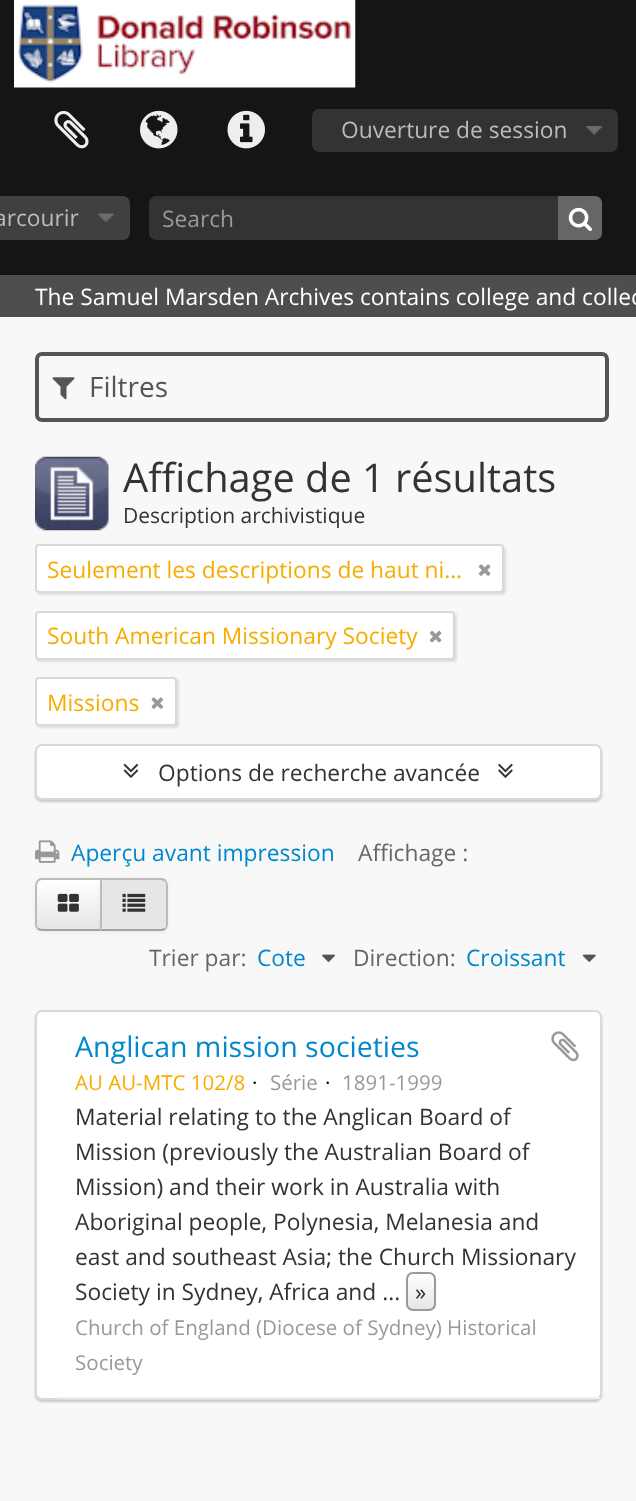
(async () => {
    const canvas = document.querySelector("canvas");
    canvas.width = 636;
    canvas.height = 1501;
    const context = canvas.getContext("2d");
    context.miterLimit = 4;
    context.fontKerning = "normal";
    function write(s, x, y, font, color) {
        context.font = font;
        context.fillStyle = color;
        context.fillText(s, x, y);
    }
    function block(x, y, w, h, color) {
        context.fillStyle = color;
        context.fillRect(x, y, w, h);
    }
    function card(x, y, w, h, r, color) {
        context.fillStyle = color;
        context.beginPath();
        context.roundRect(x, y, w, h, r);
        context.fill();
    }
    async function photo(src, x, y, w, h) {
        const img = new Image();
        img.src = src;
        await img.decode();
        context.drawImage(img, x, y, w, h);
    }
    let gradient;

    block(0, 0, 636, 1501, "rgb(248, 248, 248)");
    block(0, 0, 636, 275, "rgb(22, 21, 20)");
    await photo("media/1.png", 14, 0, 342, 88);
    await photo("media/2.png", 54, 111, 35, 38);
    await photo("media/3.png", 140, 110, 38, 39);
    await photo("media/4.png", 227, 110, 38, 39);
    card(312, 109, 306, 43, 7, "rgb(51, 51, 51)");
    await photo("media/5.png", 586, 126, 17, 9);
    write("Ouverture de session", 341, 138, "22.75px Open Sans", "rgb(187, 187, 187)");
    card(-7, 196, 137, 44, 7, "rgb(64, 64, 64)");
    await photo("media/6.png", 98, 213, 17, 10);
    write("arcourir", -6, 226, "22.75px Open Sans", "rgb(187, 187, 187)");
    card(149, 196, 453, 44, 7, "rgb(51, 51, 51)");
    context.fillStyle = "rgba(0, 0, 0, 0.07)";
    context.beginPath();
    context.moveTo(156, 198);
    context.lineTo(595, 198);
    context.bezierCurveTo(599, 198, 602, 201, 602, 205);
    context.lineTo(602, 203);
    context.bezierCurveTo(602, 199, 599, 196, 595, 196);
    context.lineTo(156, 196);
    context.bezierCurveTo(152, 196, 149, 199, 149, 203);
    context.lineTo(149, 205);
    context.bezierCurveTo(149, 201, 152, 198, 156, 198);
    context.closePath();
    context.fill();
    write("Search", 162, 227, "22.75px Open Sans", "rgb(153, 153, 153)");
    context.fillStyle = "rgb(102, 102, 102)";
    context.beginPath();
    context.roundRect(558, 196, 44, 44, [0, 7, 7, 0]);
    context.fill();
    await photo("media/7.png", 568, 207, 24, 25);
    block(0, 275, 636, 42, "rgb(79, 78, 77)");
    write("The Samuel Marsden Archives contains college and collec", 35, 305, "22.75px Open Sans", "rgb(255, 255, 255)");
    context.beginPath();
    context.roundRect(37, 354, 570, 66, 5);
    context.strokeStyle = "rgb(85, 85, 85)";
    context.lineWidth = 4;
    context.stroke();
    await photo("media/8.png", 52, 377, 23, 23);
    write("Filtres", 89, 397, "28px Open Sans", "rgb(85, 85, 85)");
    await photo("media/9.png", 35, 456, 74, 75);
    write("Affichage de 1 résultats", 123, 492, "39.75px Open Sans", "rgb(51, 51, 51)");
    write("Description archivistique", 123, 523, "21px Open Sans", "rgb(51, 51, 51)");
    context.fillStyle = "rgba(0, 0, 0, 0.1)";
    context.filter = "blur(1px)";
    context.beginPath();
    context.roundRect(37, 546, 469, 49, 4);
    context.fill();
    context.filter = "none";
    context.fillStyle = "rgb(255, 255, 255)";
    context.beginPath();
    context.roundRect(36, 545, 467, 47, 3);
    context.fill();
    context.strokeStyle = "rgb(217, 217, 217)";
    context.lineWidth = 2;
    context.stroke();
    write("Seulement les descriptions de haut ni…", 47, 578, "22.75px Open Sans", "rgb(246, 172, 0)");
    await photo("media/10.png", 478, 564, 13, 12);
    context.fillStyle = "rgba(0, 0, 0, 0.1)";
    context.filter = "blur(1px)";
    context.beginPath();
    context.roundRect(37, 613, 420, 49, 4);
    context.fill();
    context.filter = "none";
    context.fillStyle = "rgb(255, 255, 255)";
    context.beginPath();
    context.roundRect(36, 612, 418, 47, 3);
    context.fill();
    context.stroke();
    write("South American Missionary Society", 47, 644, "22.75px Open Sans", "rgb(246, 172, 0)");
    await photo("media/11.png", 429, 630, 13, 13);
    context.fillStyle = "rgba(0, 0, 0, 0.1)";
    context.filter = "blur(1px)";
    context.beginPath();
    context.roundRect(37, 679, 142, 49, 4);
    context.fill();
    context.filter = "none";
    context.fillStyle = "rgb(255, 255, 255)";
    context.beginPath();
    context.roundRect(36, 678, 140, 47, 3);
    context.fill();
    context.stroke();
    write("Missions", 47, 711, "22.75px Open Sans", "rgb(246, 172, 0)");
    await photo("media/12.png", 151, 697, 13, 12);
    context.fillStyle = "rgba(0, 0, 0, 0.2)";
    context.filter = "blur(1px)";
    context.beginPath();
    context.roundRect(35, 746, 567, 56, 7);
    context.fill();
    context.filter = "none";
    context.fillStyle = "rgb(255, 255, 255)";
    context.beginPath();
    context.roundRect(36, 745, 565, 54, 6);
    context.fill();
    context.stroke();
    await photo("media/13.png", 123, 763, 16, 15);
    write("Options de recherche avancée", 158, 781, "22.75px Open Sans", "rgb(51, 51, 51)");
    await photo("media/14.png", 498, 763, 15, 15);
    await photo("media/15.png", 35, 840, 25, 23);
    write("Aperçu avant impression", 71, 861, "22.75px Open Sans", "rgb(0, 136, 204)");
    write("Affichage :", 358, 861, "22.75px Open Sans", "rgb(102, 102, 102)");
    context.fillStyle = "rgba(0, 0, 0, 0.05)";
    context.filter = "blur(2px)";
    context.beginPath();
    context.roundRect(35, 880, 67, 53, 7);
    context.fill();
    context.filter = "none";
    context.save();
    context.beginPath();
    context.roundRect(35, 879, 67, 52, [7, 0, 0, 7]);
    context.clip();
    gradient = context.createLinearGradient(68, 880, 68, 929);
    gradient.addColorStop(0, "rgb(255, 255, 255)");
    gradient.addColorStop(1, "rgb(230, 230, 230)");
    context.fillStyle = gradient;
    context.fillRect(35, 880, 65, 49);
    context.restore();
    context.fillStyle = "rgb(187, 187, 187)";
    context.beginPath();
    context.moveTo(42, 880);
    context.bezierCurveTo(40, 880, 39, 881, 38, 882);
    context.lineTo(37, 880);
    context.lineTo(40, 878);
    context.lineTo(102, 878);
    context.lineTo(100, 880);
    context.closePath();
    context.fill();
    context.fillStyle = "rgb(162, 162, 162)";
    context.beginPath();
    context.moveTo(102, 931);
    context.lineTo(100, 929);
    context.lineTo(42, 929);
    context.bezierCurveTo(40, 929, 39, 928, 38, 928);
    context.lineTo(37, 929);
    context.bezierCurveTo(38, 930, 40, 931, 42, 931);
    context.closePath();
    context.fill();
    context.fillStyle = "rgb(187, 187, 187)";
    context.beginPath();
    context.moveTo(35, 886);
    context.lineTo(35, 924);
    context.bezierCurveTo(35, 926, 36, 928, 37, 929);
    context.lineTo(38, 928);
    context.bezierCurveTo(38, 927, 37, 926, 37, 924);
    context.lineTo(37, 886);
    context.bezierCurveTo(37, 884, 38, 883, 38, 882);
    context.lineTo(37, 880);
    context.bezierCurveTo(36, 882, 35, 884, 35, 886);
    context.closePath();
    context.fill();
    await photo("media/16.png", 57, 893, 22, 19);
    context.fillStyle = "rgba(0, 0, 0, 0.05)";
    context.filter = "blur(2px)";
    context.beginPath();
    context.roundRect(100, 880, 68, 53, 7);
    context.fill();
    context.filter = "none";
    context.fillStyle = "rgb(230, 230, 230)";
    context.beginPath();
    context.roundRect(100, 879, 68, 52, [0, 7, 7, 0]);
    context.fill();
    context.fillStyle = "rgb(187, 187, 187)";
    context.beginPath();
    context.moveTo(102, 880);
    context.lineTo(102, 881);
    context.lineTo(100, 878);
    context.lineTo(163, 878);
    context.lineTo(166, 880);
    context.lineTo(165, 882);
    context.bezierCurveTo(164, 881, 162, 880, 161, 880);
    context.closePath();
    context.fill();
    context.beginPath();
    context.moveTo(168, 924);
    context.lineTo(168, 886);
    context.bezierCurveTo(168, 884, 167, 882, 166, 880);
    context.lineTo(165, 882);
    context.bezierCurveTo(166, 883, 166, 884, 166, 886);
    context.lineTo(166, 924);
    context.bezierCurveTo(166, 926, 166, 927, 165, 928);
    context.lineTo(166, 929);
    context.bezierCurveTo(167, 928, 168, 926, 168, 924);
    context.closePath();
    context.fill();
    context.fillStyle = "rgb(162, 162, 162)";
    context.beginPath();
    context.moveTo(100, 931);
    context.lineTo(161, 931);
    context.bezierCurveTo(163, 931, 165, 930, 166, 929);
    context.lineTo(165, 928);
    context.bezierCurveTo(164, 928, 162, 929, 161, 929);
    context.lineTo(102, 929);
    context.closePath();
    context.fill();
    context.fillStyle = "rgb(187, 187, 187)";
    context.beginPath();
    context.moveTo(100, 931);
    context.lineTo(100, 879);
    context.lineTo(102, 881);
    context.lineTo(102, 929);
    context.closePath();
    context.fill();
    await photo("media/17.png", 122, 893, 24, 19);
    write("Trier par:", 149, 966, "22.75px Open Sans", "rgb(102, 102, 102)");
    write("Cote", 257, 966, "22.75px Open Sans", "rgb(0, 136, 204)");
    await photo("media/18.png", 322, 954, 13, 8);
    write("Direction:", 353, 966, "22.75px Open Sans", "rgb(102, 102, 102)");
    write("Croissant", 466, 966, "22.75px Open Sans", "rgb(0, 136, 204)");
    await photo("media/19.png", 582, 954, 14, 8);
    context.fillStyle = "rgba(0, 0, 0, 0.2)";
    context.filter = "blur(1px)";
    context.beginPath();
    context.roundRect(35, 1012, 567, 390, 7);
    context.fill();
    context.filter = "none";
    context.fillStyle = "rgb(255, 255, 255)";
    context.beginPath();
    context.roundRect(36, 1011, 565, 388, 6);
    context.fill();
    context.stroke();
    block(58, 1397, 542, 2, "rgb(238, 238, 238)");
    write("Anglican mission societies", 75, 1057, "28.5px Open Sans", "rgb(0, 136, 204)");
    await photo("media/20.png", 551, 1031, 28, 31);
    write("AU AU-MTC 102/8", 75, 1090, "20.5px Open Sans", "rgb(246, 172, 0)");
    write("·", 252, 1090, "20.5px Open Sans", "rgb(0, 0, 0)");
    write("Série", 270, 1090, "20.5px Open Sans", "rgb(153, 153, 153)");
    write("·", 325, 1090, "20.5px Open Sans", "rgb(0, 0, 0)");
    write("1891-1999", 342, 1090, "20.5px Open Sans", "rgb(153, 153, 153)");
    write("Material relating to the Anglican Board of", 75, 1125, "22.75px Open Sans", "rgb(51, 51, 51)");
    write("Mission (previously the Australian Board of", 75, 1160, "22.75px Open Sans", "rgb(51, 51, 51)");
    write("Mission) and their work in Australia with", 75, 1195, "22.75px Open Sans", "rgb(51, 51, 51)");
    write("Aboriginal people, Polynesia, Melanesia and", 75, 1230, "22.75px Open Sans", "rgb(51, 51, 51)");
    write("east and southeast Asia; the Church Missionary", 75, 1265, "22.75px Open Sans", "rgb(51, 51, 51)");
    write("Society in Sydney, Africa and ...", 75, 1300, "22.75px Open Sans", "rgb(51, 51, 51)");
    context.save();
    context.beginPath();
    context.roundRect(406, 1272, 30, 39, 7);
    context.clip();
    gradient = context.createLinearGradient(421, 1274, 421, 1309);
    gradient.addColorStop(0, "rgb(255, 255, 255)");
    gradient.addColorStop(1, "rgb(230, 230, 230)");
    context.fillStyle = gradient;
    context.fillRect(406, 1274, 30, 35);
    context.restore();
    context.beginPath();
    context.roundRect(407, 1273, 28, 37, 6);
    context.strokeStyle = "rgb(153, 153, 153)";
    context.stroke();
    write("»", 415, 1300, "22.75px Open Sans", "rgb(51, 51, 51)");
    write("Church of England (Diocese of Sydney) Historical", 75, 1335, "20.5px Open Sans", "rgb(153, 153, 153)");
    write("Society", 75, 1370, "20.5px Open Sans", "rgb(153, 153, 153)");
})();
